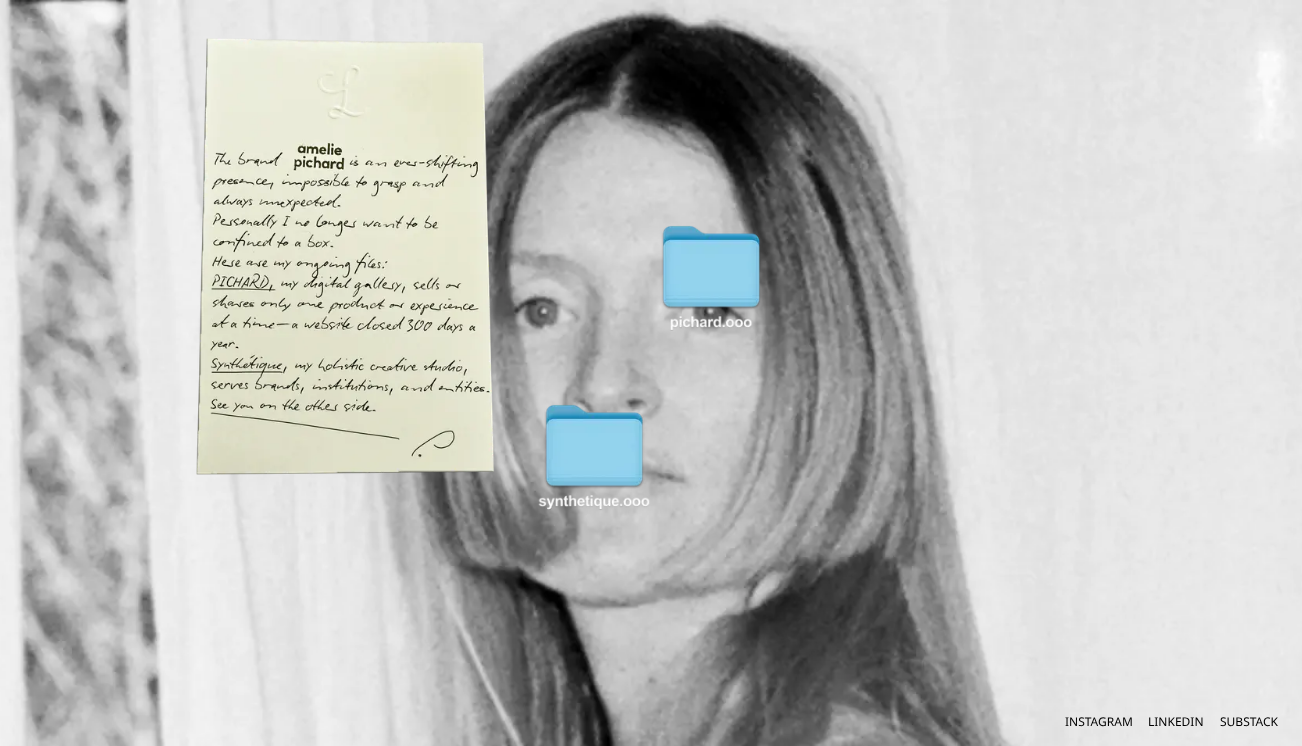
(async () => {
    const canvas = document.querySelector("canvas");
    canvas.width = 1302;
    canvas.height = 746;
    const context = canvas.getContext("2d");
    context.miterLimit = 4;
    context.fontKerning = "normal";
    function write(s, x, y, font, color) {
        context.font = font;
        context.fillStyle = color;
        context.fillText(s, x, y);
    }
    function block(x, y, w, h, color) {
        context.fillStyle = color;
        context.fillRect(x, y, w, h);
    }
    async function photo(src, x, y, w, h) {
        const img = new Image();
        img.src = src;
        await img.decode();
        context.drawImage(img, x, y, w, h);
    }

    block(0, 0, 1302, 746, "rgb(255, 255, 255)");
    await photo("media/1.png", 0, 0, 1302, 746);
    await photo("media/2.png", 196, 38, 299, 437);
    await photo("media/3.png", 661, 225, 100, 106);
    await photo("media/4.png", 538, 404, 112, 106);
    write("INSTAGRAM", 1065, 726, "12px Noto Sans", "rgb(0, 0, 0)");
    write("LINKEDIN", 1148, 726, "12px Noto Sans", "rgb(0, 0, 0)");
    write("SUBSTACK", 1220, 726, "12px Noto Sans", "rgb(0, 0, 0)");
})();
